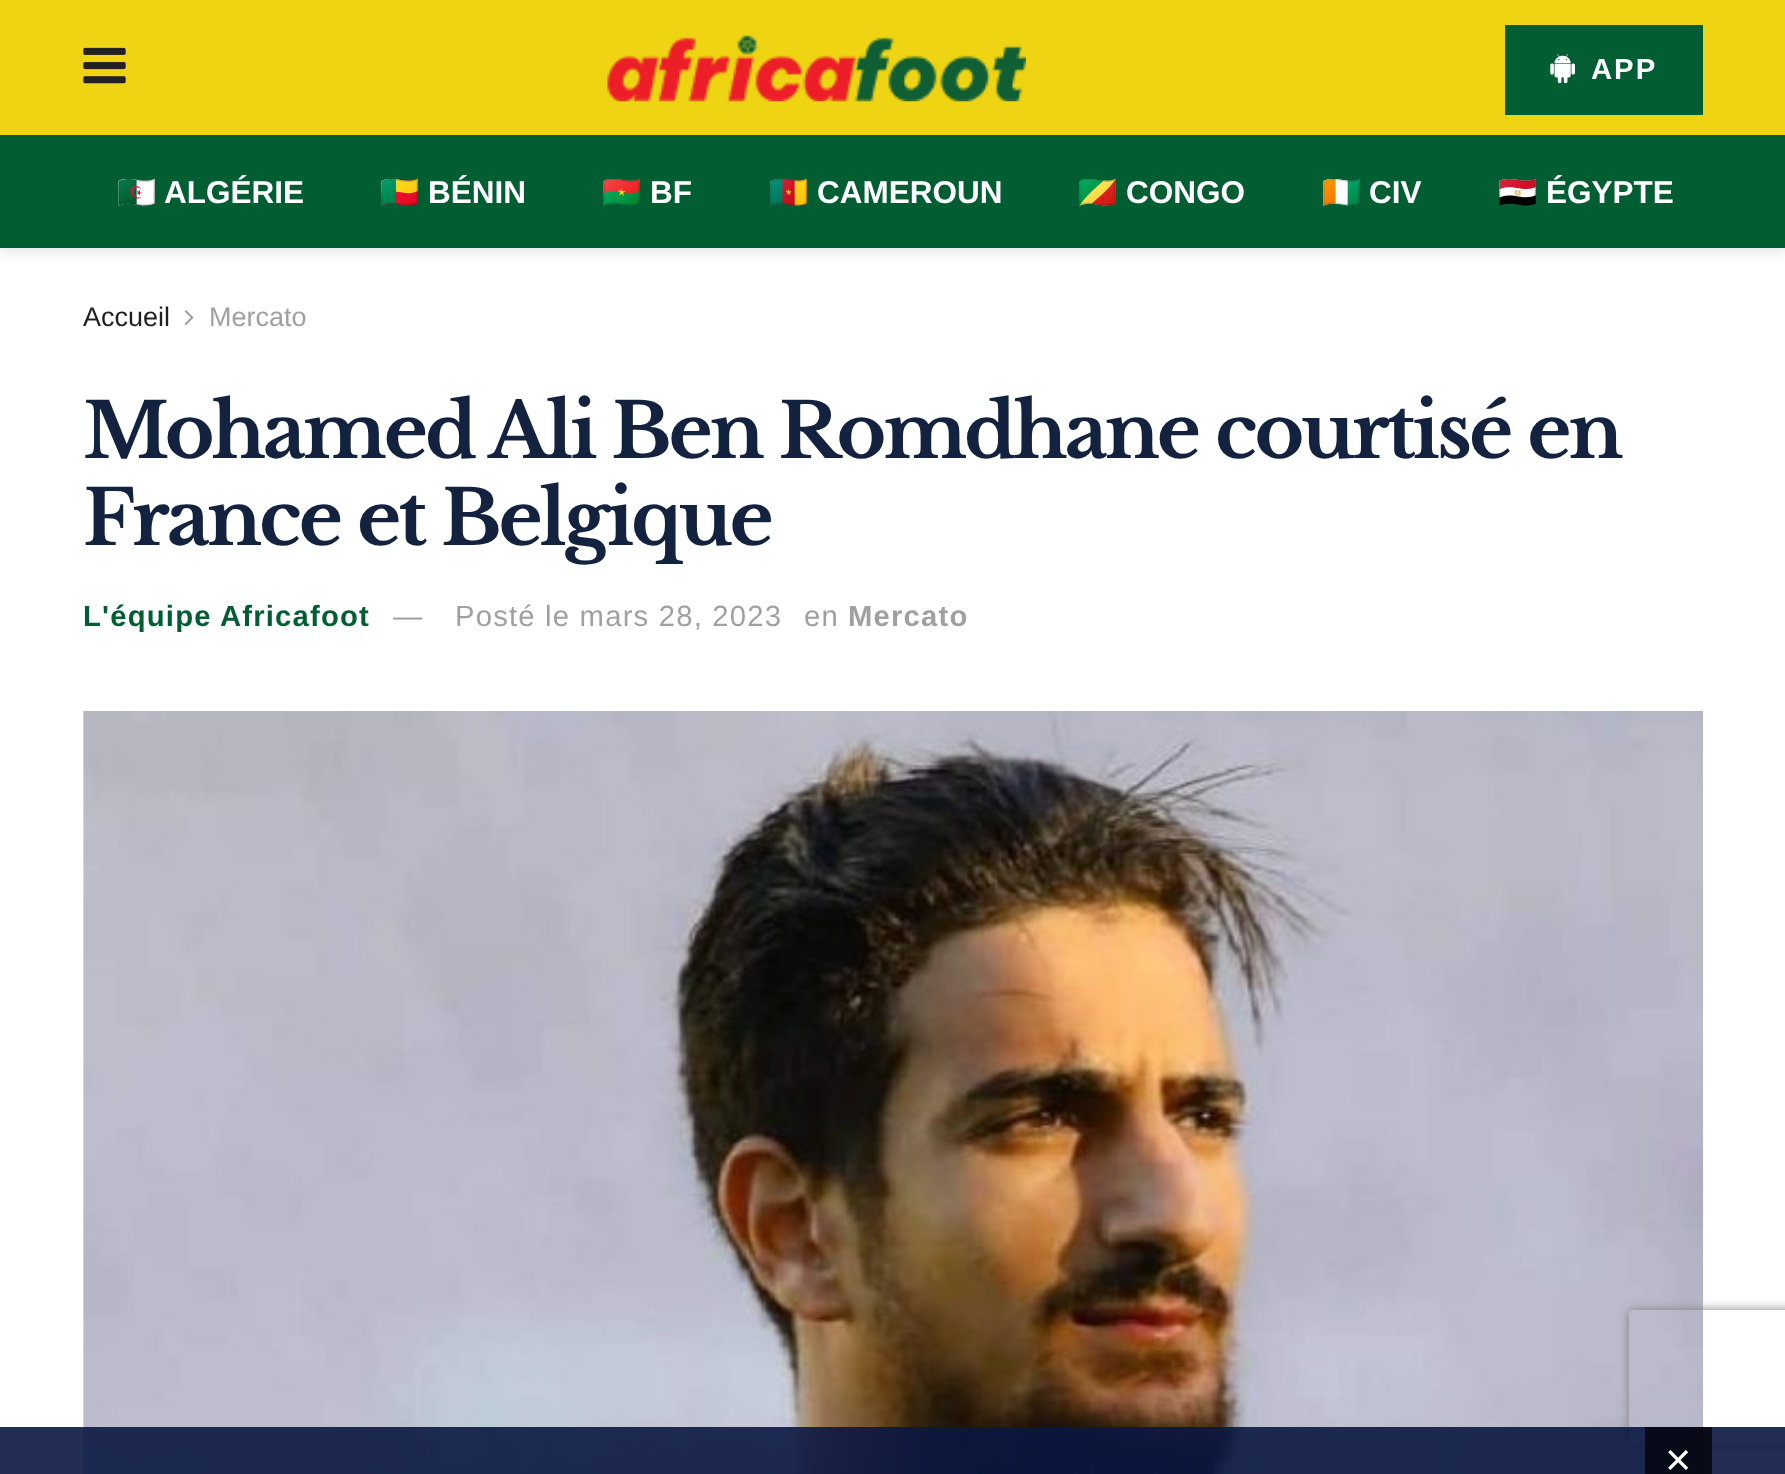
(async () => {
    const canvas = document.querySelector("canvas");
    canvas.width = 1785;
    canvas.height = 1474;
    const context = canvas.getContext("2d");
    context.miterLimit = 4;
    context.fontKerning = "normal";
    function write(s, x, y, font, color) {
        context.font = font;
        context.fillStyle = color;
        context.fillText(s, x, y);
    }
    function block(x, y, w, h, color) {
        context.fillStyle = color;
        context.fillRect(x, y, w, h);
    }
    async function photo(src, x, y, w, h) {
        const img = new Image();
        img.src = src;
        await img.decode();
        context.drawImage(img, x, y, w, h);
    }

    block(0, 0, 1785, 1474, "rgb(255, 255, 255)");
    context.fillStyle = "rgba(0, 0, 0, 0.1)";
    context.filter = "blur(7px)";
    context.beginPath();
    context.rect(0, 5, 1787, 247);
    context.fill();
    context.filter = "none";
    block(0, 0, 1785, 135, "rgb(239, 212, 20)");
    await photo("media/1.png", 83, 47, 43, 37);
    await photo("media/2.png", 607, 35, 419, 67);
    block(1505, 25, 198, 90, "rgb(1, 94, 51)");
    await photo("media/3.png", 1550, 54, 25, 30);
    context.letterSpacing = "2px";
    write("APP", 1591, 79, "bold 29.25px Liberation Sans", "rgb(255, 255, 255)");
    block(0, 135, 1785, 113, "rgb(1, 94, 51)");
    context.letterSpacing = "0px";
    write("🇩🇿", 117, 203, "bold 31.5px Noto Color Emoji", "rgb(255, 255, 255)");
    write("ALGÉRIE", 164, 203, "bold 31.5px Liberation Sans", "rgb(255, 255, 255)");
    write("🇧🇯", 380, 203, "bold 31.5px Noto Color Emoji", "rgb(255, 255, 255)");
    write("BÉNIN", 428, 203, "bold 31.5px Liberation Sans", "rgb(255, 255, 255)");
    write("🇧🇫", 602, 203, "bold 31.5px Noto Color Emoji", "rgb(255, 255, 255)");
    write("BF", 650, 203, "bold 31.5px Liberation Sans", "rgb(255, 255, 255)");
    write("🇨🇲", 769, 203, "bold 31.5px Noto Color Emoji", "rgb(255, 255, 255)");
    write("CAMEROUN", 817, 203, "bold 31.5px Liberation Sans", "rgb(255, 255, 255)");
    write("🇨🇬", 1078, 203, "bold 31.5px Noto Color Emoji", "rgb(255, 255, 255)");
    write("CONGO", 1126, 203, "bold 31.5px Liberation Sans", "rgb(255, 255, 255)");
    write("🇨🇮", 1322, 203, "bold 31.5px Noto Color Emoji", "rgb(255, 255, 255)");
    write("CIV", 1369, 203, "bold 31.5px Liberation Sans", "rgb(255, 255, 255)");
    write("🇪🇬", 1498, 203, "bold 31.5px Noto Color Emoji", "rgb(255, 255, 255)");
    write("ÉGYPTE", 1546, 203, "bold 31.5px Liberation Sans", "rgb(255, 255, 255)");
    write("Accueil", 83, 326, "27px Liberation Sans", "rgb(34, 31, 32)");
    await photo("media/4.png", 184, 310, 10, 15);
    write("Mercato", 209, 326, "27px Liberation Sans", "rgb(160, 160, 160)");
    context.letterSpacing = "-3px";
    context.wordSpacing = "-0.25px";
    write("Mohamed Ali Ben Romdhane courtisé en", 83, 458, "bold 75.6px Libre Baskerville", "rgb(19, 34, 62)");
    context.wordSpacing = "0px";
    write("France et Belgique", 83, 545, "bold 75.6px Libre Baskerville", "rgb(19, 34, 62)");
    context.letterSpacing = "1.2px";
    write("L'équipe Africafoot", 83, 626, "bold 29.25px Liberation Sans", "rgb(1, 94, 51)");
    write("—", 393, 626, "29.25px Liberation Sans", "rgb(160, 160, 160)");
    write("Posté le mars 28, 2023", 455, 626, "29.25px Liberation Sans", "rgb(160, 160, 160)");
    write("en", 804, 626, "29.25px Liberation Sans", "rgb(160, 160, 160)");
    write("Mercato", 848, 626, "bold 29.25px Liberation Sans", "rgb(160, 160, 160)");
    block(83, 711, 1, 763, "rgb(247, 247, 247)");
    await photo("media/5.png", 83, 711, 1621, 763);
    context.save();
    context.beginPath();
    context.moveTo(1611, 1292);
    context.lineTo(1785, 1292);
    context.lineTo(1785, 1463);
    context.lineTo(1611, 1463);
    context.closePath();
    context.moveTo(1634, 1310);
    context.lineTo(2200, 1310);
    context.bezierCurveTo(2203, 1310, 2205, 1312, 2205, 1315);
    context.lineTo(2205, 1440);
    context.bezierCurveTo(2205, 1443, 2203, 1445, 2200, 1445);
    context.lineTo(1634, 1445);
    context.bezierCurveTo(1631, 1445, 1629, 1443, 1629, 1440);
    context.lineTo(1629, 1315);
    context.bezierCurveTo(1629, 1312, 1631, 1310, 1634, 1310);
    context.closePath();
    context.clip("evenodd");
    context.fillStyle = "rgb(128, 128, 128)";
    context.filter = "blur(5.5px)";
    context.beginPath();
    context.roundRect(1629, 1310, 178, 135, 5);
    context.fill();
    context.filter = "none";
    context.restore();
    block(0, 1427, 1785, 47, "rgba(10, 23, 65, 0.9)");
    block(1645, 1427, 67, 47, "rgba(0, 0, 0, 0.7)");
    context.letterSpacing = "0px";
    write("×", 1665, 1475, "45px Liberation Sans", "rgb(255, 255, 255)");
})();
